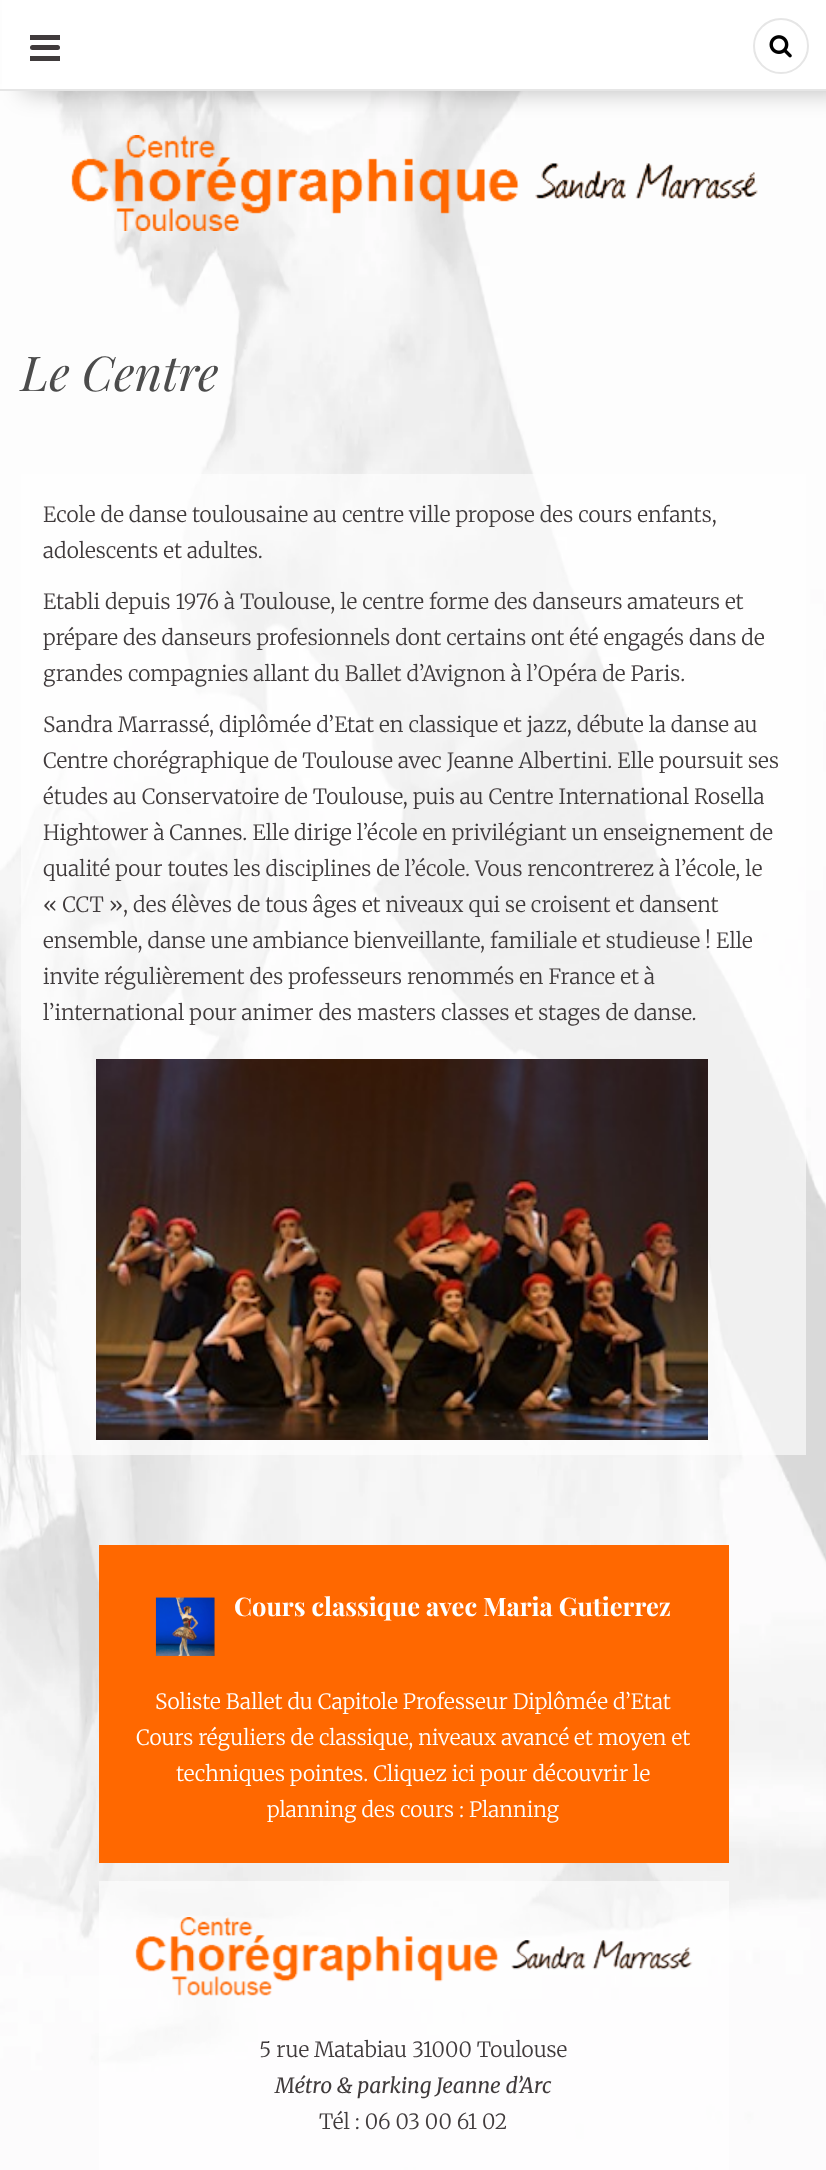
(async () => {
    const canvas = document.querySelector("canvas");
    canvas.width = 826;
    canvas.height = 2170;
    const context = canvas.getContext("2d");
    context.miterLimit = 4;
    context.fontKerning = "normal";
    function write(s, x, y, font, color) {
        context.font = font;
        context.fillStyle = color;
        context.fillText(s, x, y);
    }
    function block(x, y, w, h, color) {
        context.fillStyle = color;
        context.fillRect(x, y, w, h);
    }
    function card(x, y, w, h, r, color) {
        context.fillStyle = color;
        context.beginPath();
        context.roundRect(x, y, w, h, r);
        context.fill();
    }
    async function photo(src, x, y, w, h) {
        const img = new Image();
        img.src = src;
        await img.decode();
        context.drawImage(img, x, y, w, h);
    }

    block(0, 0, 826, 2170, "rgb(255, 255, 255)");
    await photo("media/1.png", 0, 91, 826, 2079);
    context.fillStyle = "rgba(0, 0, 0, 0.25)";
    context.filter = "blur(12px)";
    context.beginPath();
    context.rect(23, 2, 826, 90);
    context.fill();
    context.filter = "none";
    block(2, 0, 824, 89, "rgb(255, 255, 255)");
    block(0, 89, 826, 2, "rgb(230, 230, 230)");
    card(30, 45, 30, 5, 2.5, "rgb(64, 59, 60)");
    block(30, 35, 30, 5, "rgb(64, 59, 60)");
    block(30, 56, 30, 5, "rgb(64, 59, 60)");
    context.beginPath();
    context.arc(781, 46, 27, 0, Math.PI * 2);
    context.strokeStyle = "rgb(230, 230, 230)";
    context.lineWidth = 2;
    context.stroke();
    await photo("media/2.png", 769, 35, 23, 23);
    await photo("media/3.png", 71, 135, 687, 96);
    write("Le Centre", 21, 391, "italic 48px Playfair Display", "rgb(76, 76, 76)");
    block(21, 474, 785, 981, "rgba(255, 255, 255, 0.6)");
    write("Ecole de danse toulousaine au centre ville propose des cours enfants,", 43, 522, "300 21px Merriweather", "rgb(64, 59, 60)");
    write("adolescents et adultes.", 43, 558, "300 21px Merriweather", "rgb(64, 59, 60)");
    write("Etabli depuis 1976 à Toulouse, le centre forme des danseurs amateurs et", 43, 609, "300 21px Merriweather", "rgb(64, 59, 60)");
    write("prépare des danseurs profesionnels dont certains ont été engagés dans de", 43, 645, "300 21px Merriweather", "rgb(64, 59, 60)");
    write("grandes compagnies allant du Ballet d’Avignon à l’Opéra de Paris.", 43, 681, "300 21px Merriweather", "rgb(64, 59, 60)");
    write("Sandra Marrassé, diplômée d’Etat en classique et jazz, débute la danse au", 43, 732, "300 21px Merriweather", "rgb(64, 59, 60)");
    write("Centre chorégraphique de Toulouse avec Jeanne Albertini. Elle poursuit ses", 43, 768, "300 21px Merriweather", "rgb(64, 59, 60)");
    write("études au Conservatoire de Toulouse, puis au Centre International Rosella", 43, 804, "300 21px Merriweather", "rgb(64, 59, 60)");
    write("Hightower à Cannes. Elle dirige l’école en privilégiant un enseignement de", 43, 840, "300 21px Merriweather", "rgb(64, 59, 60)");
    write("qualité pour toutes les disciplines de l’école. Vous rencontrerez à l’école, le", 43, 876, "300 21px Merriweather", "rgb(64, 59, 60)");
    write("« CCT », des élèves de tous âges et niveaux qui se croisent et dansent", 43, 912, "300 21px Merriweather", "rgb(64, 59, 60)");
    write("ensemble, danse une ambiance bienveillante, familiale et studieuse ! Elle", 43, 948, "300 21px Merriweather", "rgb(64, 59, 60)");
    write("invite régulièrement des professeurs renommés en France et à", 43, 984, "300 21px Merriweather", "rgb(64, 59, 60)");
    write("l’international pour animer des masters classes et stages de danse.", 43, 1020, "300 21px Merriweather", "rgb(64, 59, 60)");
    await photo("media/4.png", 96, 1059, 612, 381);
    block(99, 1545, 630, 318, "rgb(255, 104, 0)");
    await photo("media/5.png", 155, 1597, 60, 59);
    write("Cours classique avec Maria Gutierrez", 234, 1616, "bold 25.5px Playfair Display", "rgb(255, 255, 255)");
    write("Soliste Ballet du Capitole Professeur Diplômée d’Etat", 155, 1709, "300 21px Merriweather", "rgb(255, 255, 255)");
    write("Cours réguliers de classique, niveaux avancé et moyen et", 136, 1745, "300 21px Merriweather", "rgb(255, 255, 255)");
    write("techniques pointes. Cliquez ici pour découvrir le", 176, 1781, "300 21px Merriweather", "rgb(255, 255, 255)");
    write("planning des cours : Planning", 267, 1817, "300 21px Merriweather", "rgb(255, 255, 255)");
    block(99, 1881, 630, 289, "rgba(255, 255, 255, 0.6)");
    await photo("media/6.png", 135, 1917, 558, 79);
    write("5 rue Matabiau 31000 Toulouse", 259, 2057, "300 21px Merriweather", "rgb(64, 59, 60)");
    write("Métro & parking Jeanne d’Arc", 275, 2093, "italic 300 21px Merriweather", "rgb(64, 59, 60)");
    write("Tél : 06 03 00 61 02", 319, 2129, "300 21px Merriweather", "rgb(64, 59, 60)");
})();
